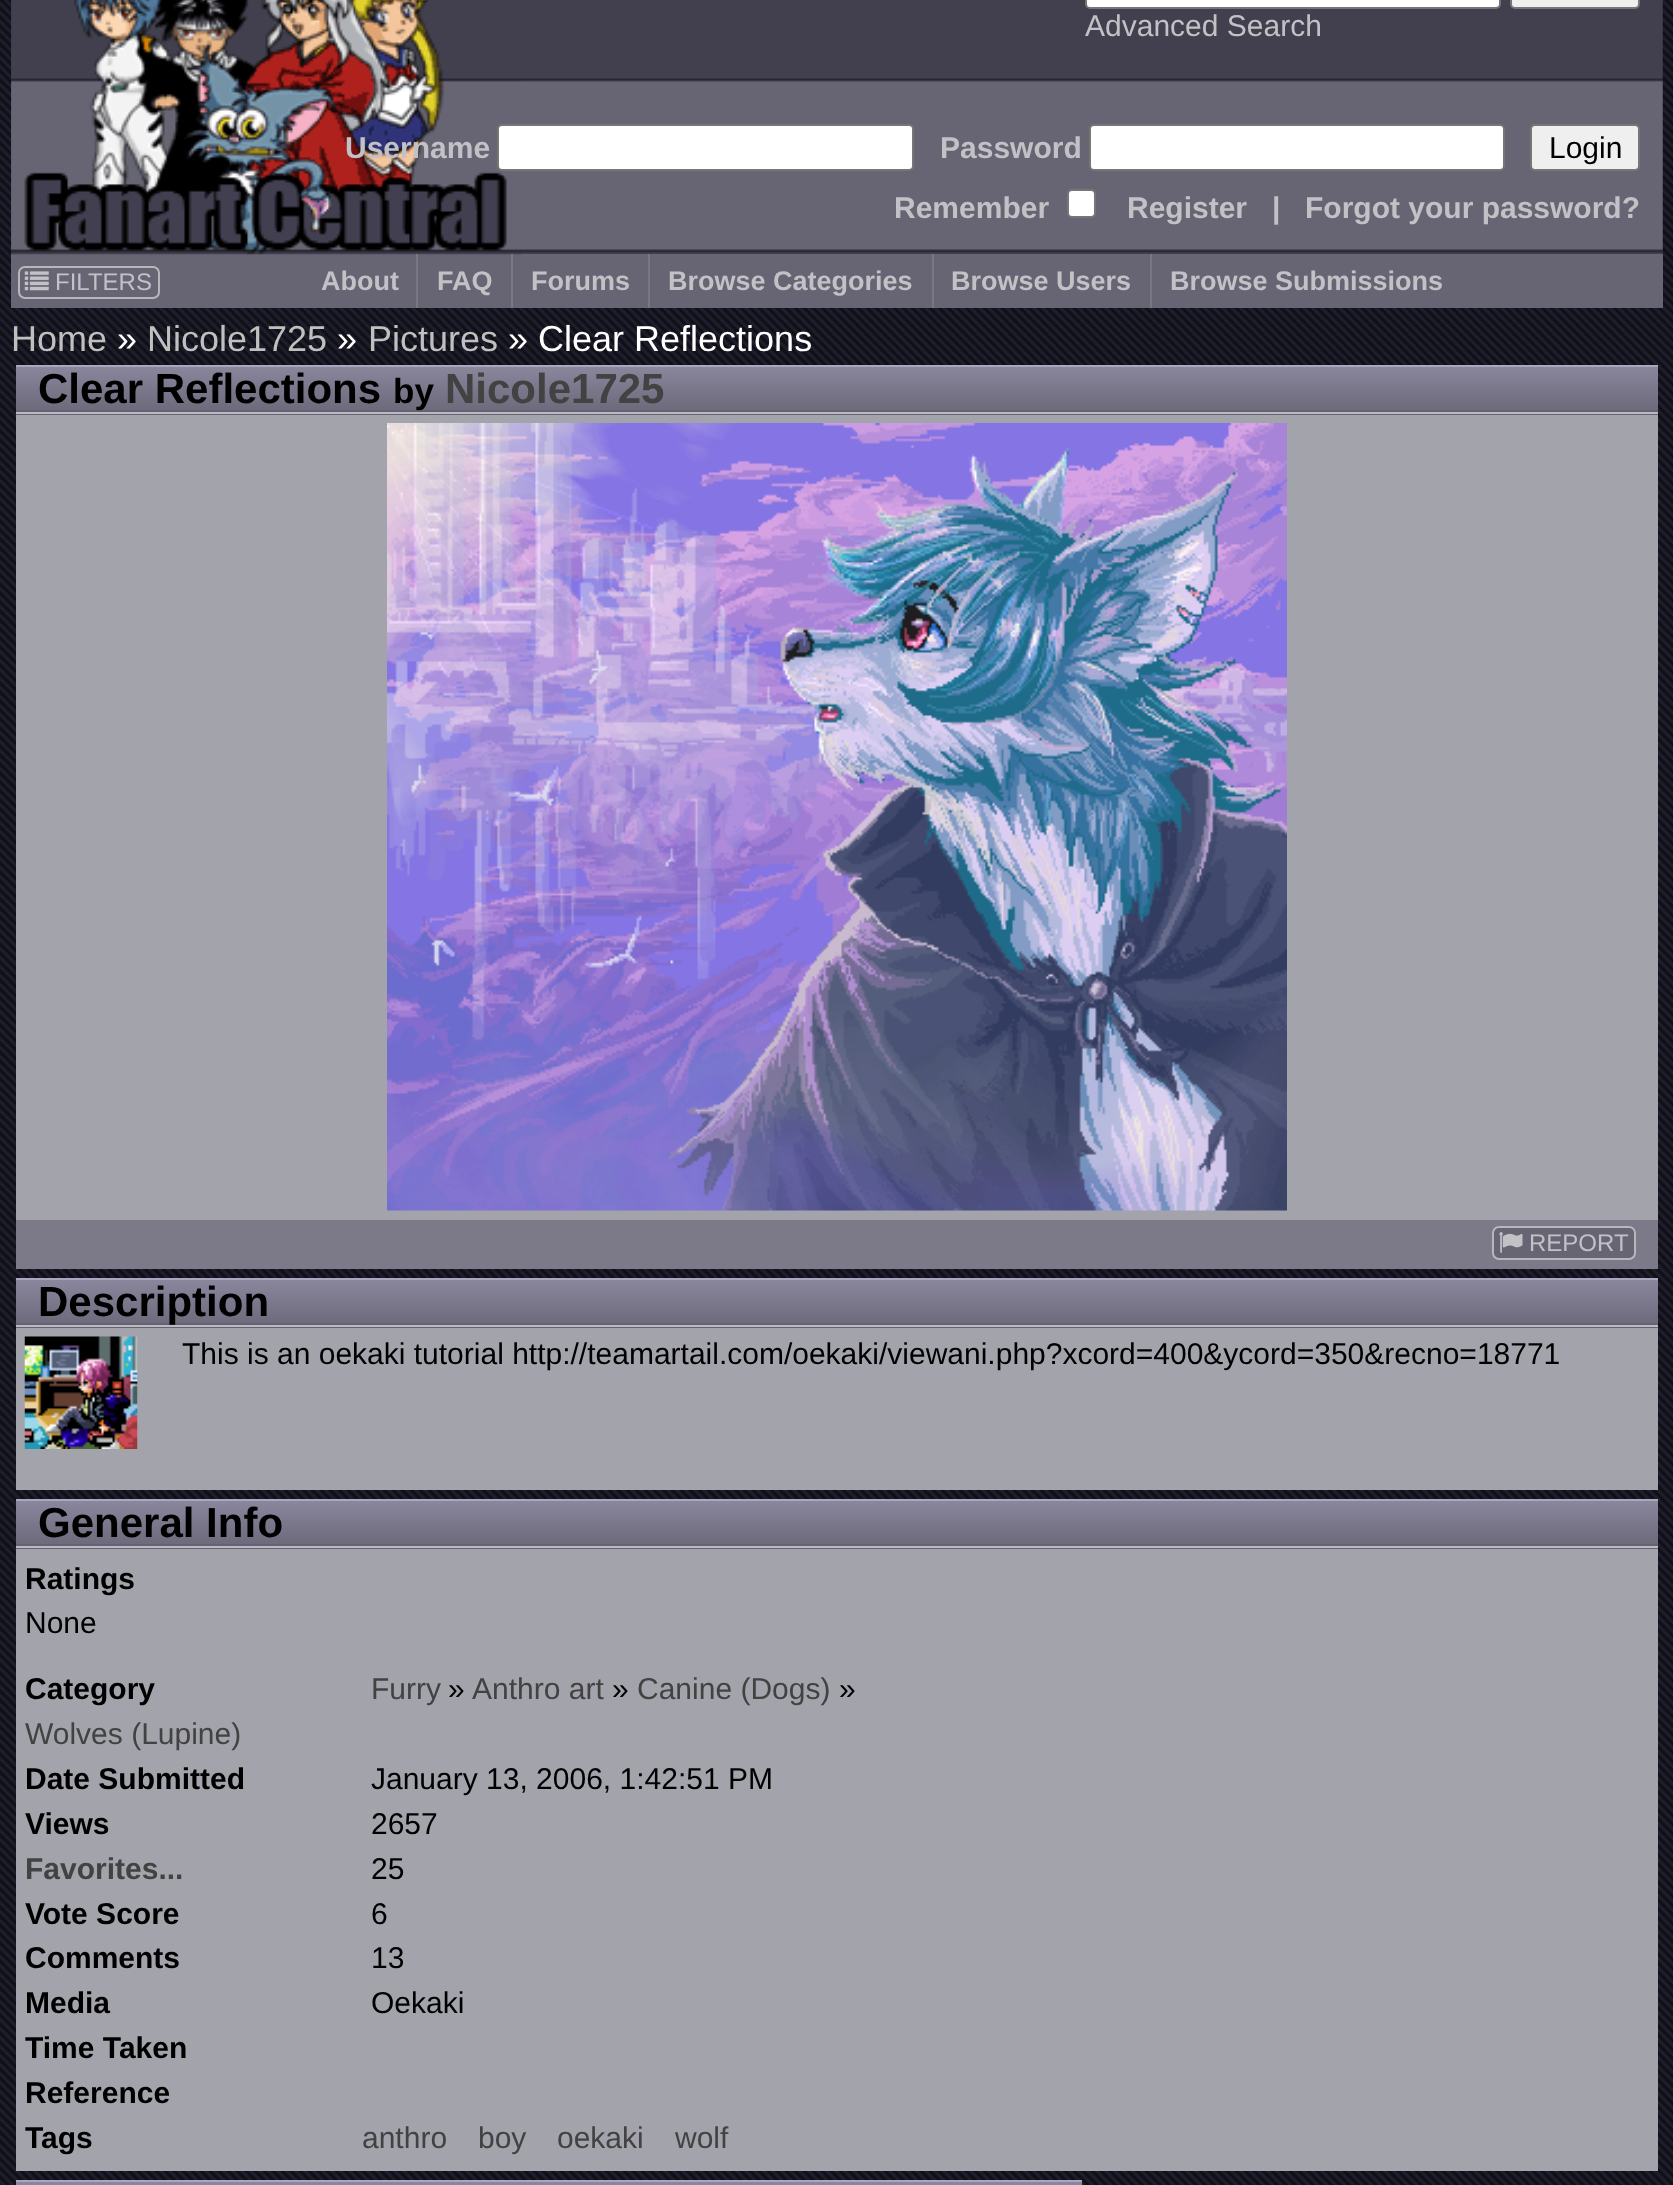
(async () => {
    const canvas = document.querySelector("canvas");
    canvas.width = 1673;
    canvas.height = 2185;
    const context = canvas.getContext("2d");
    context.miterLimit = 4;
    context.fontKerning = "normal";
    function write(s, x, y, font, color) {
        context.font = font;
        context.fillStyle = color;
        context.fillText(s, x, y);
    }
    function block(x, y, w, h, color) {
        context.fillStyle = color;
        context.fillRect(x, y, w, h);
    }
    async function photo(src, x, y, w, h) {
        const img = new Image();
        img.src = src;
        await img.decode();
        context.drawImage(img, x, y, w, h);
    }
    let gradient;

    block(0, 0, 1673, 2185, "rgb(255, 255, 255)");
    await photo("media/1.png", 0, 0, 1673, 2185);
    await photo("media/2.png", 11, 0, 1652, 254);
    block(11, 254, 1652, 54, "rgb(103, 101, 115)");
    await photo("media/3.png", 11, 0, 511, 255);
    context.fillStyle = "rgb(255, 255, 255)";
    context.beginPath();
    context.roundRect(1086, -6, 414, 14, 4);
    context.fill();
    context.strokeStyle = "rgb(118, 118, 118)";
    context.lineWidth = 2;
    context.stroke();
    context.fillStyle = "rgb(239, 239, 239)";
    context.beginPath();
    context.roundRect(1511, -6, 128, 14, 4);
    context.fill();
    context.stroke();
    write("Advanced Search", 1085, 36, "30px Liberation Sans", "rgb(194, 193, 198)");
    write("Username", 345, 158, "bold 30px Liberation Sans", "rgb(194, 193, 198)");
    context.fillStyle = "rgb(255, 255, 255)";
    context.beginPath();
    context.roundRect(498, 125, 415, 45, 4);
    context.fill();
    context.stroke();
    write("Password", 940, 158, "bold 30px Liberation Sans", "rgb(194, 193, 198)");
    context.fillStyle = "rgb(255, 255, 255)";
    context.beginPath();
    context.roundRect(1090, 125, 414, 45, 4);
    context.fill();
    context.stroke();
    context.fillStyle = "rgb(239, 239, 239)";
    context.beginPath();
    context.roundRect(1531, 125, 108, 45, 4);
    context.fill();
    context.stroke();
    write("Login", 1549, 158, "30px Liberation Sans", "rgb(0, 0, 0)");
    write("Remember", 894, 218, "bold 30px Liberation Sans", "rgb(194, 193, 198)");
    context.fillStyle = "rgb(255, 255, 255)";
    context.beginPath();
    context.roundRect(1068, 190, 27, 27, 4);
    context.fill();
    context.stroke();
    write("Register", 1127, 218, "bold 30px Liberation Sans", "rgb(194, 193, 198)");
    write("|", 1272, 218, "bold 30px Liberation Sans", "rgb(194, 193, 198)");
    write("Forgot your password?", 1305, 218, "bold 30px Liberation Sans", "rgb(194, 193, 198)");
    context.beginPath();
    context.roundRect(19, 267, 140, 31, 6);
    context.strokeStyle = "rgb(183, 182, 187)";
    context.stroke();
    await photo("media/4.png", 24, 271, 25, 20);
    write("FILTERS", 55, 290, "24px Liberation Sans", "rgb(194, 193, 198)");
    block(416, 254, 2, 54, "rgb(121, 119, 130)");
    write("About", 321, 290, "bold 27px Liberation Sans", "rgb(194, 193, 198)");
    block(511, 254, 2, 54, "rgb(121, 119, 130)");
    write("FAQ", 437, 290, "bold 27px Liberation Sans", "rgb(194, 193, 198)");
    block(648, 254, 2, 54, "rgb(121, 119, 130)");
    write("Forums", 531, 290, "bold 27px Liberation Sans", "rgb(194, 193, 198)");
    block(932, 254, 2, 54, "rgb(121, 119, 130)");
    write("Browse Categories", 668, 290, "bold 27px Liberation Sans", "rgb(194, 193, 198)");
    block(1150, 254, 2, 54, "rgb(121, 119, 130)");
    write("Browse Users", 951, 290, "bold 27px Liberation Sans", "rgb(194, 193, 198)");
    write("Browse Submissions", 1170, 290, "bold 27px Liberation Sans", "rgb(194, 193, 198)");
    write("Home", 11, 351, "36px Liberation Sans", "rgb(192, 192, 192)");
    write("»", 117, 351, "36px Liberation Sans", "rgb(255, 255, 255)");
    write("Nicole1725", 147, 351, "36px Liberation Sans", "rgb(192, 192, 192)");
    write("»", 337, 351, "36px Liberation Sans", "rgb(255, 255, 255)");
    write("Pictures", 368, 351, "36px Liberation Sans", "rgb(192, 192, 192)");
    write("» Clear Reflections", 508, 351, "36px Liberation Sans", "rgb(255, 255, 255)");
    gradient = context.createLinearGradient(837, 364, 837, 414);
    gradient.addColorStop(0.01, "rgb(139, 135, 158)");
    gradient.addColorStop(1, "rgb(107, 104, 121)");
    context.fillStyle = gradient;
    context.fillRect(16, 367, 1642, 43);
    block(16, 365, 1642, 2, "rgb(170, 166, 192)");
    block(16, 410, 1642, 5, "rgb(102, 99, 118)");
    block(16, 412, 1642, 2, "rgb(186, 185, 190)");
    write("Clear Reflections", 38, 403, "bold 42px Liberation Sans", "rgb(0, 0, 0)");
    write("by", 393, 403, "bold 35px Liberation Sans", "rgb(0, 0, 0)");
    write("Nicole1725", 445, 403, "bold 42px Liberation Sans", "rgb(66, 66, 66)");
    block(16, 415, 1642, 805, "rgb(163, 163, 171)");
    await photo("media/5.png", 387, 423, 900, 788);
    block(16, 1220, 1642, 49, "rgb(124, 122, 137)");
    context.fillStyle = "rgb(103, 101, 115)";
    context.beginPath();
    context.roundRect(1493, 1227, 142, 32, 6);
    context.fill();
    context.stroke();
    await photo("media/6.png", 1499, 1232, 24, 21);
    write("REPORT", 1529, 1251, "24px Liberation Sans", "rgb(194, 193, 198)");
    gradient = context.createLinearGradient(837, 1278, 837, 1328);
    gradient.addColorStop(0.01, "rgb(139, 135, 158)");
    gradient.addColorStop(1, "rgb(107, 104, 121)");
    context.fillStyle = gradient;
    context.fillRect(16, 1280, 1642, 43);
    block(16, 1278, 1642, 2, "rgb(170, 166, 192)");
    block(16, 1323, 1642, 5, "rgb(102, 99, 118)");
    block(16, 1325, 1642, 2, "rgb(186, 185, 190)");
    write("Description", 38, 1316, "bold 42px Liberation Sans", "rgb(0, 0, 0)");
    block(16, 1328, 1642, 162, "rgb(163, 163, 171)");
    await photo("media/7.png", 24, 1336, 114, 113);
    write("This is an oekaki tutorial http://teamartail.com/oekaki/viewani.php?xcord=400&ycord=350&recno=18771", 182, 1364, "30px Liberation Sans", "rgb(0, 0, 0)");
    gradient = context.createLinearGradient(837, 1499, 837, 1548);
    gradient.addColorStop(0.01, "rgb(139, 135, 158)");
    gradient.addColorStop(1, "rgb(107, 104, 121)");
    context.fillStyle = gradient;
    context.fillRect(16, 1501, 1642, 43);
    block(16, 1499, 1642, 2, "rgb(170, 166, 192)");
    block(16, 1544, 1642, 5, "rgb(102, 99, 118)");
    block(16, 1546, 1642, 2, "rgb(186, 185, 190)");
    write("General Info", 38, 1537, "bold 42px Liberation Sans", "rgb(0, 0, 0)");
    block(16, 1549, 1642, 622, "rgb(163, 163, 171)");
    write("Ratings", 25, 1589, "bold 30px Liberation Sans", "rgb(0, 0, 0)");
    write("None", 25, 1633, "30px Liberation Sans", "rgb(0, 0, 0)");
    write("Category", 25, 1699, "bold 30px Liberation Sans", "rgb(0, 0, 0)");
    write("Furry", 371, 1699, "30px Liberation Sans", "rgb(66, 66, 66)");
    write("»", 448, 1699, "30px Liberation Sans", "rgb(0, 0, 0)");
    write("Anthro art", 472, 1699, "30px Liberation Sans", "rgb(66, 66, 66)");
    write("»", 612, 1699, "30px Liberation Sans", "rgb(0, 0, 0)");
    write("Canine (Dogs)", 637, 1699, "30px Liberation Sans", "rgb(66, 66, 66)");
    write("»", 839, 1699, "30px Liberation Sans", "rgb(0, 0, 0)");
    write("Wolves (Lupine)", 25, 1744, "30px Liberation Sans", "rgb(66, 66, 66)");
    write("Date Submitted", 25, 1789, "bold 30px Liberation Sans", "rgb(0, 0, 0)");
    write("January 13, 2006, 1:42:51 PM", 371, 1789, "30px Liberation Sans", "rgb(0, 0, 0)");
    write("Views", 25, 1834, "bold 30px Liberation Sans", "rgb(0, 0, 0)");
    write("2657", 371, 1834, "30px Liberation Sans", "rgb(0, 0, 0)");
    write("Favorites...", 25, 1879, "bold 30px Liberation Sans", "rgb(66, 66, 66)");
    write("25", 371, 1879, "30px Liberation Sans", "rgb(0, 0, 0)");
    write("Vote Score", 25, 1924, "bold 30px Liberation Sans", "rgb(0, 0, 0)");
    write("6", 371, 1924, "30px Liberation Sans", "rgb(0, 0, 0)");
    write("Comments", 25, 1968, "bold 30px Liberation Sans", "rgb(0, 0, 0)");
    write("13", 371, 1968, "30px Liberation Sans", "rgb(0, 0, 0)");
    write("Media", 25, 2013, "bold 30px Liberation Sans", "rgb(0, 0, 0)");
    write("Oekaki", 371, 2013, "30px Liberation Sans", "rgb(0, 0, 0)");
    write("Time Taken", 25, 2058, "bold 30px Liberation Sans", "rgb(0, 0, 0)");
    write("Reference", 25, 2103, "bold 30px Liberation Sans", "rgb(0, 0, 0)");
    write("Tags", 25, 2148, "bold 30px Liberation Sans", "rgb(0, 0, 0)");
    write("anthro", 362, 2148, "30px Liberation Sans", "rgb(66, 66, 66)");
    write("boy", 478, 2148, "30px Liberation Sans", "rgb(66, 66, 66)");
    write("oekaki", 557, 2148, "30px Liberation Sans", "rgb(66, 66, 66)");
    write("wolf", 675, 2148, "30px Liberation Sans", "rgb(66, 66, 66)");
    gradient = context.createLinearGradient(549, 2180, 549, 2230);
    gradient.addColorStop(0.01, "rgb(139, 135, 158)");
    gradient.addColorStop(1, "rgb(107, 104, 121)");
    context.fillStyle = gradient;
    context.fillRect(16, 2182, 1066, 3);
    block(16, 2180, 1066, 2, "rgb(170, 166, 192)");
})();
